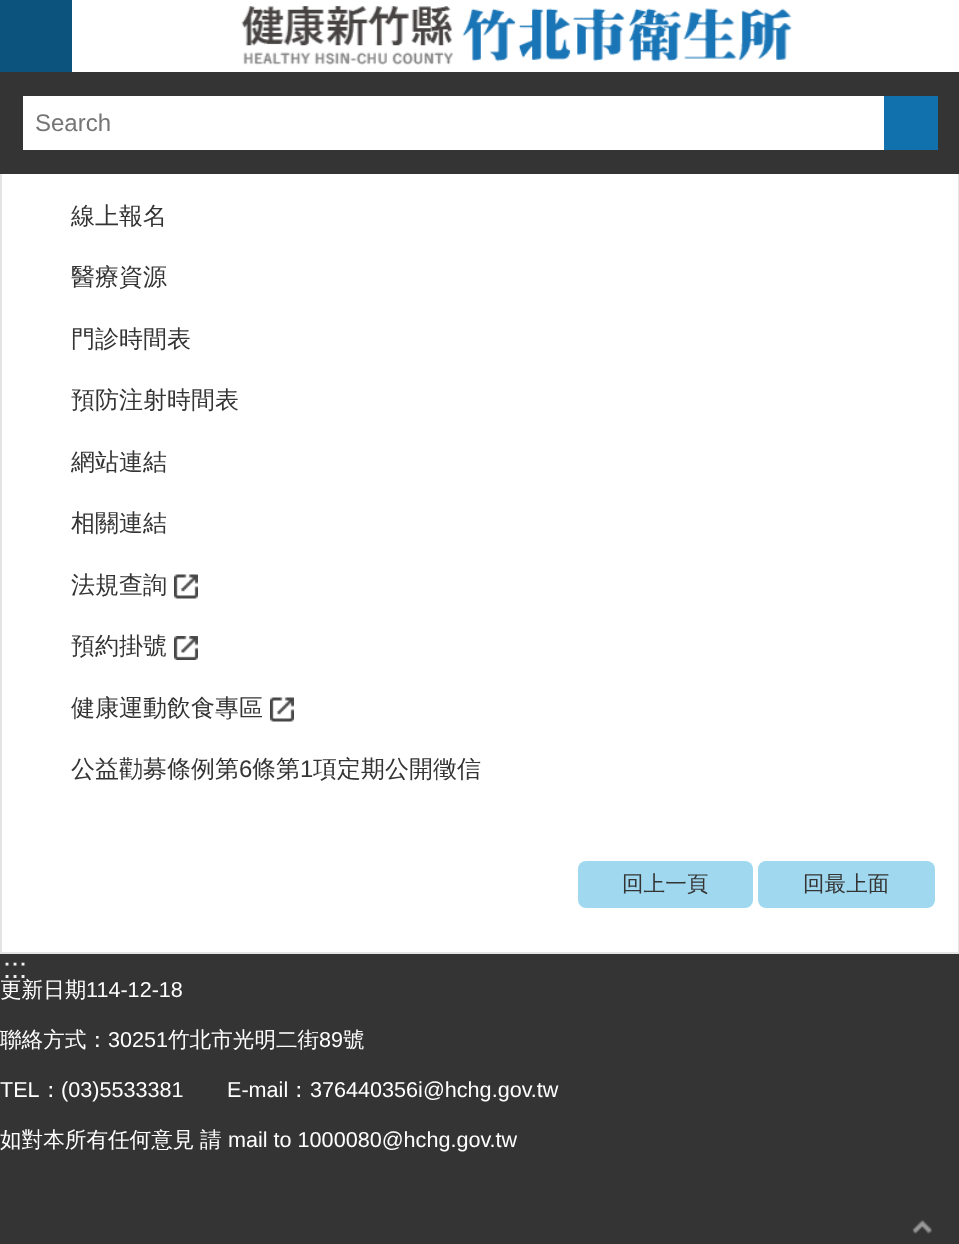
(async () => {
    const canvas = document.querySelector("canvas");
    canvas.width = 959;
    canvas.height = 1244;
    const context = canvas.getContext("2d");
    context.miterLimit = 4;
    context.fontKerning = "normal";
    function write(s, x, y, font, color) {
        context.font = font;
        context.fillStyle = color;
        context.fillText(s, x, y);
    }
    function block(x, y, w, h, color) {
        context.fillStyle = color;
        context.fillRect(x, y, w, h);
    }
    function card(x, y, w, h, r, color) {
        context.fillStyle = color;
        context.beginPath();
        context.roundRect(x, y, w, h, r);
        context.fill();
    }
    async function photo(src, x, y, w, h) {
        const img = new Image();
        img.src = src;
        await img.decode();
        context.drawImage(img, x, y, w, h);
    }

    block(0, 0, 959, 1244, "rgb(255, 255, 255)");
    context.strokeStyle = "rgb(228, 228, 228)";
    context.lineWidth = 2;
    context.strokeRect(1, -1, 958, 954);
    block(0, 0, 72, 72, "rgb(12, 83, 126)");
    block(958, 0, 1, 72, "rgb(255, 255, 255)");
    await photo("media/1.png", 241, 6, 551, 59);
    block(0, 72, 959, 102, "rgb(52, 52, 52)");
    block(23, 96, 861, 54, "rgb(255, 255, 255)");
    write("Search", 35, 131, "24px Liberation Sans", "rgb(117, 117, 117)");
    block(884, 96, 54, 54, "rgb(16, 113, 173)");
    write("線上報名", 71, 224, "500 24px WenQuanYi Zen Hei", "rgb(52, 52, 52)");
    write("醫療資源", 71, 285, "500 24px WenQuanYi Zen Hei", "rgb(52, 52, 52)");
    write("門診時間表", 71, 347, "500 24px WenQuanYi Zen Hei", "rgb(52, 52, 52)");
    write("預防注射時間表", 71, 408, "500 24px WenQuanYi Zen Hei", "rgb(52, 52, 52)");
    write("網站連結", 71, 470, "500 24px WenQuanYi Zen Hei", "rgb(52, 52, 52)");
    write("相關連結", 71, 531, "500 24px WenQuanYi Zen Hei", "rgb(52, 52, 52)");
    write("法規查詢", 71, 593, "500 24px WenQuanYi Zen Hei", "rgb(52, 52, 52)");
    await photo("media/2.png", 174, 574, 24, 25);
    write("預約掛號", 71, 654, "500 24px WenQuanYi Zen Hei", "rgb(52, 52, 52)");
    await photo("media/3.png", 174, 636, 24, 24);
    write("健康運動飲食專區", 71, 716, "500 24px WenQuanYi Zen Hei", "rgb(52, 52, 52)");
    await photo("media/4.png", 270, 697, 24, 25);
    write("公益勸募條例第", 71, 777, "500 24px WenQuanYi Zen Hei", "rgb(52, 52, 52)");
    write("6", 239, 777, "24px Liberation Sans", "rgb(52, 52, 52)");
    write("條第", 252, 777, "500 24px WenQuanYi Zen Hei", "rgb(52, 52, 52)");
    write("1", 300, 777, "24px Liberation Sans", "rgb(52, 52, 52)");
    write("項定期公開徵信", 313, 777, "500 24px WenQuanYi Zen Hei", "rgb(52, 52, 52)");
    card(578, 861, 175, 47, 8, "rgb(160, 217, 239)");
    write("回上一頁", 622, 891, "500 21.6px WenQuanYi Zen Hei", "rgb(52, 52, 52)");
    card(758, 861, 177, 47, 8, "rgb(160, 217, 239)");
    write("回最上面", 803, 891, "500 21.6px WenQuanYi Zen Hei", "rgb(52, 52, 52)");
    block(0, 954, 959, 290, "rgb(52, 52, 52)");
    write(":::", 3, 978, "29px Liberation Sans", "rgb(240, 240, 240)");
    write("更新日期", 0, 997, "500 21.6px WenQuanYi Zen Hei", "rgb(255, 255, 255)");
    write("114-12-18", 86, 997, "21.6px Liberation Sans", "rgb(255, 255, 255)");
    write("聯絡方式：", 0, 1047, "500 21.6px WenQuanYi Zen Hei", "rgb(255, 255, 255)");
    write("30251", 108, 1047, "21.6px Liberation Sans", "rgb(255, 255, 255)");
    write("竹北市光明二街", 168, 1047, "500 21.6px WenQuanYi Zen Hei", "rgb(255, 255, 255)");
    write("89", 319, 1047, "21.6px Liberation Sans", "rgb(255, 255, 255)");
    write("號", 343, 1047, "500 21.6px WenQuanYi Zen Hei", "rgb(255, 255, 255)");
    write("TEL", 0, 1097, "21.6px Liberation Sans", "rgb(255, 255, 255)");
    write("：", 40, 1097, "500 21.6px WenQuanYi Zen Hei", "rgb(255, 255, 255)");
    write("(03)5533381", 61, 1097, "21.6px Liberation Sans", "rgb(255, 255, 255)");
    write("E-mail", 227, 1097, "21.6px Liberation Sans", "rgb(255, 255, 255)");
    write("：", 288, 1097, "500 21.6px WenQuanYi Zen Hei", "rgb(255, 255, 255)");
    write("376440356i@hchg.gov.tw", 310, 1097, "21.6px Liberation Sans", "rgb(255, 255, 255)");
    write("如對本所有任何意見", 0, 1147, "500 21.6px WenQuanYi Zen Hei", "rgb(255, 255, 255)");
    write("請", 200, 1147, "500 21.6px WenQuanYi Zen Hei", "rgb(255, 255, 255)");
    write("mail to 1000080@hchg.gov.tw", 228, 1147, "21.6px Liberation Sans", "rgb(255, 255, 255)");
    await photo("media/5.png", 912, 1220, 20, 14);
})();
